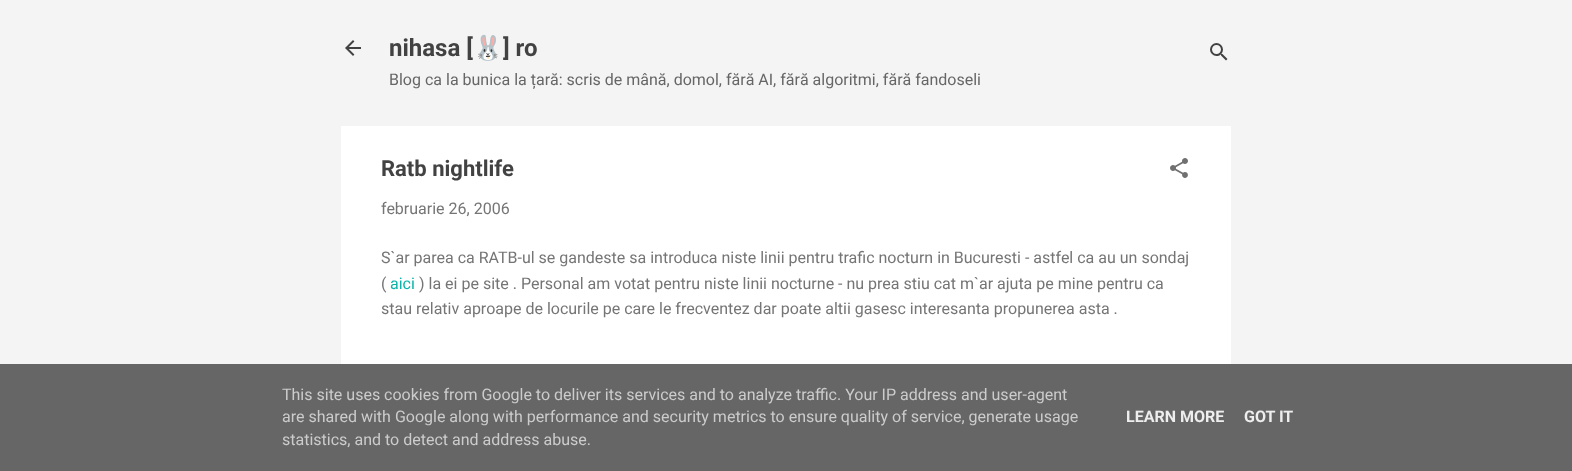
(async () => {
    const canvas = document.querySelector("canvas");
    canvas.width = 1572;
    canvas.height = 471;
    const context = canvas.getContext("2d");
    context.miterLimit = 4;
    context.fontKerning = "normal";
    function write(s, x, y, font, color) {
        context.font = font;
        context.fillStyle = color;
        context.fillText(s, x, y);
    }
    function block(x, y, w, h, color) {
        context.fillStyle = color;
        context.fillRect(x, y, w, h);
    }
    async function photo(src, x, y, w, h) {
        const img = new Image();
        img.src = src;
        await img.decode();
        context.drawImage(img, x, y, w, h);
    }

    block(0, 0, 1572, 471, "rgb(244, 244, 244)");
    await photo("media/1.png", 345, 40, 16, 16);
    write("nihasa [", 389, 56, "bold 24px Roboto", "rgb(66, 66, 66)");
    write("🐰", 473, 56, "bold 24px Noto Color Emoji", "rgb(66, 66, 66)");
    write("] ro", 503, 56, "bold 24px Roboto", "rgb(66, 66, 66)");
    write("Blog ca la bunica la țară: scris de mână, domol, fără AI, fără algoritmi, fără fandoseli", 389, 85, "16px Roboto", "rgb(102, 102, 102)");
    await photo("media/2.png", 1210, 43, 18, 18);
    block(341, 126, 890, 238, "rgb(255, 255, 255)");
    write("Ratb nightlife", 381, 176, "bold 22px Roboto", "rgb(66, 66, 66)");
    await photo("media/3.png", 1170, 158, 18, 20);
    write("februarie 26, 2006", 381, 214, "16px Roboto", "rgb(117, 117, 117)");
    write("S`ar parea ca RATB-ul se gandeste sa introduca niste linii pentru trafic nocturn in Bucuresti - astfel ca au un sondaj", 381, 263, "16px Roboto", "rgb(117, 117, 117)");
    write("(", 381, 289, "16px Roboto", "rgb(117, 117, 117)");
    write("aici", 390, 289, "16px Roboto", "rgb(11, 179, 170)");
    write(") la ei pe site . Personal am votat pentru niste linii nocturne - nu prea stiu cat m`ar ajuta pe mine pentru ca", 419, 289, "16px Roboto", "rgb(117, 117, 117)");
    write("stau relativ aproape de locurile pe care le frecventez dar poate altii gasesc interesanta propunerea asta .", 381, 314, "16px Roboto", "rgb(117, 117, 117)");
    block(0, 364, 1572, 107, "rgb(102, 102, 102)");
    write("This site uses cookies from Google to deliver its services and to analyze traffic. Your IP address and user-agent", 282, 400, "16px Roboto", "rgb(204, 204, 204)");
    write("are shared with Google along with performance and security metrics to ensure quality of service, generate usage", 282, 422, "16px Roboto", "rgb(204, 204, 204)");
    write("statistics, and to detect and address abuse.", 282, 445, "16px Roboto", "rgb(204, 204, 204)");
    write("LEARN MORE", 1126, 422, "bold 16px Roboto", "rgb(238, 238, 238)");
    write("GOT IT", 1244, 422, "bold 16px Roboto", "rgb(238, 238, 238)");
})();
